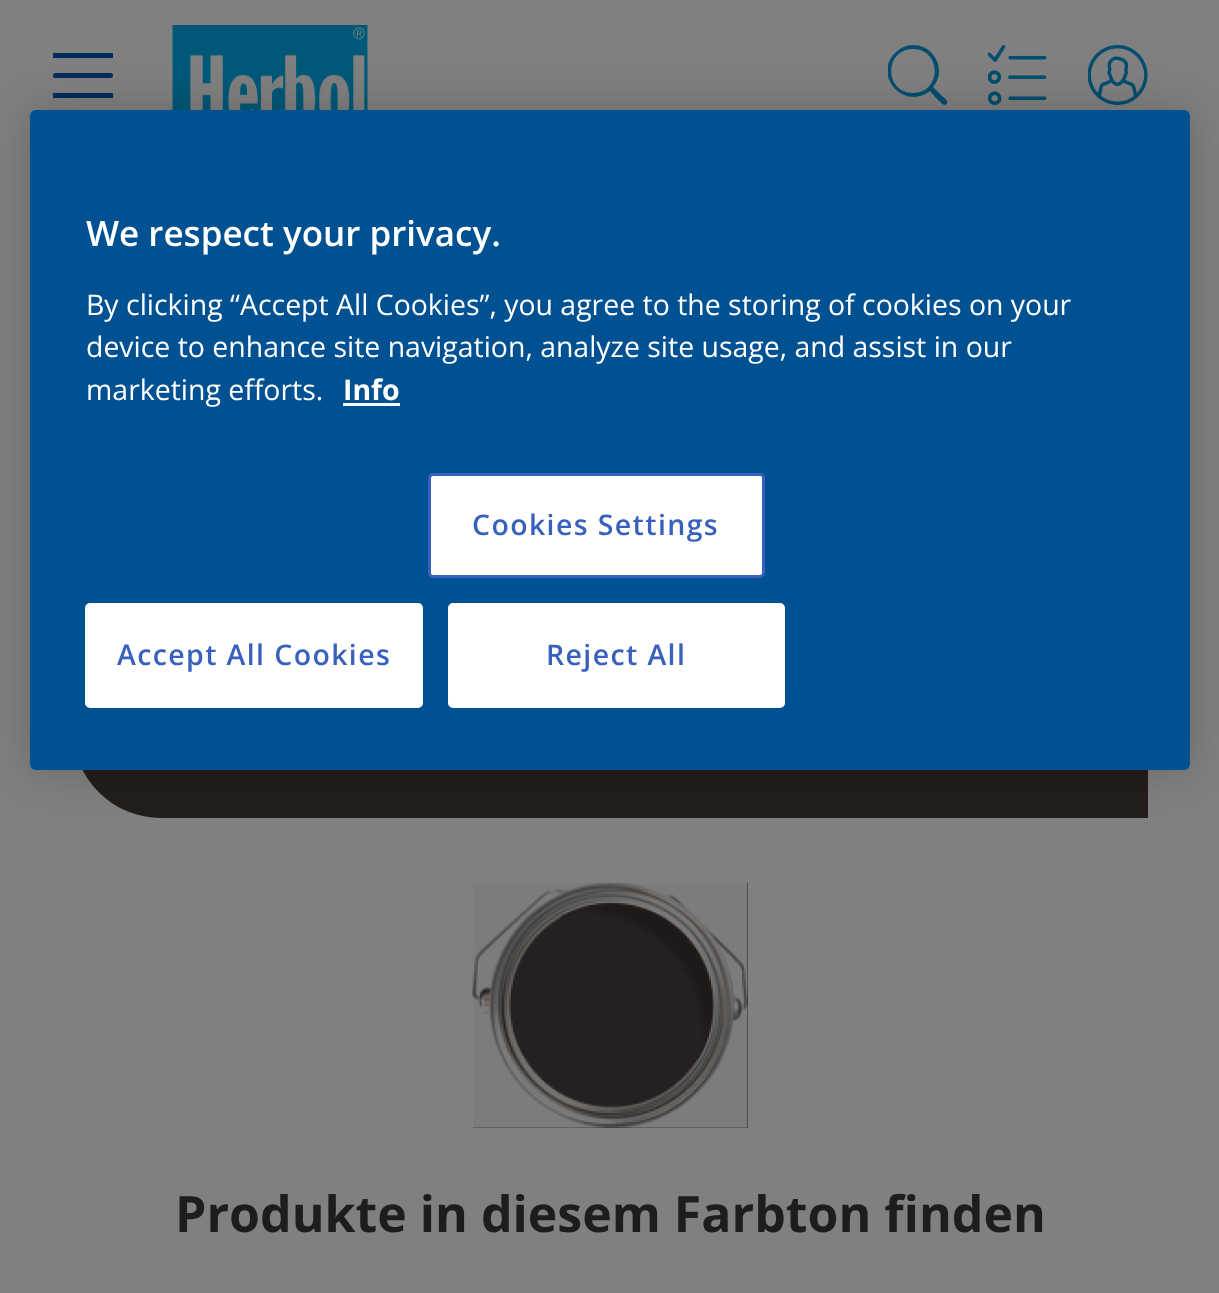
(async () => {
    const canvas = document.querySelector("canvas");
    canvas.width = 1219;
    canvas.height = 1293;
    const context = canvas.getContext("2d");
    context.miterLimit = 4;
    context.fontKerning = "normal";
    function write(s, x, y, font, color) {
        context.font = font;
        context.fillStyle = color;
        context.fillText(s, x, y);
    }
    function block(x, y, w, h, color) {
        context.fillStyle = color;
        context.fillRect(x, y, w, h);
    }
    function card(x, y, w, h, r, color) {
        context.fillStyle = color;
        context.beginPath();
        context.roundRect(x, y, w, h, r);
        context.fill();
    }
    async function photo(src, x, y, w, h) {
        const img = new Image();
        img.src = src;
        await img.decode();
        context.drawImage(img, x, y, w, h);
    }

    block(0, 0, 1219, 1293, "rgb(128, 128, 128)");
    card(53, 73, 60, 5, 2.5, "rgb(0, 44, 92)");
    block(53, 53, 60, 5, "rgb(0, 44, 92)");
    block(53, 93, 60, 5, "rgb(0, 44, 92)");
    await photo("media/1.png", 172, 25, 196, 85);
    context.save();
    context.beginPath();
    context.rect(888, 45, 60, 60);
    context.clip();
    context.fillStyle = "rgb(0, 78, 111)";
    context.beginPath();
    context.moveTo(913, 45);
    context.bezierCurveTo(935, 45, 947, 71, 933, 87);
    context.lineTo(942, 96);
    context.bezierCurveTo(944, 98, 948, 100, 947, 103);
    context.bezierCurveTo(945, 109, 938, 99, 936, 98);
    context.lineTo(930, 91);
    context.bezierCurveTo(905, 111, 872, 76, 895, 53);
    context.bezierCurveTo(900, 48, 906, 45, 913, 45);
    context.moveTo(913, 49);
    context.bezierCurveTo(884, 49, 884, 93, 913, 93);
    context.bezierCurveTo(942, 93, 942, 49, 913, 49);
    context.fill();
    context.restore();
    await photo("media/2.png", 988, 45, 59, 60);
    await photo("media/3.png", 1088, 45, 60, 60);
    context.fillStyle = "rgb(35, 29, 28)";
    context.beginPath();
    context.roundRect(73, 240, 1075, 578, [0, 88, 0, 88]);
    context.fill();
    context.fillStyle = "rgba(0, 0, 0, 0.2)";
    context.filter = "blur(22.5px)";
    context.beginPath();
    context.roundRect(30, 110, 1160, 660, 6);
    context.fill();
    context.filter = "none";
    card(30, 110, 1160, 660, 6, "rgb(0, 81, 146)");
    write("We respect your privacy.", 86, 246, "600 35px Open Sans", "rgb(255, 255, 255)");
    write("By clicking “Accept All Cookies”, you agree to the storing of cookies on your", 86, 315, "28.45px Open Sans", "rgb(255, 255, 255)");
    write("device to enhance site navigation, analyze site usage, and assist in our", 86, 357, "28.45px Open Sans", "rgb(255, 255, 255)");
    write("marketing efforts.", 86, 400, "28.45px Open Sans", "rgb(255, 255, 255)");
    write("Info", 343, 400, "bold 28.45px Open Sans", "rgb(255, 255, 255)");
    block(343, 403, 57, 3, "rgb(250, 251, 255)");
    context.fillStyle = "rgb(255, 255, 255)";
    context.beginPath();
    context.roundRect(429.5, 474.5, 334, 102, 3.5);
    context.fill();
    context.strokeStyle = "rgb(56, 96, 190)";
    context.lineWidth = 3;
    context.stroke();
    context.letterSpacing = "1.4px";
    write("Cookies Settings", 472, 535, "600 28.45px Open Sans", "rgb(56, 96, 190)");
    context.fillStyle = "rgb(255, 255, 255)";
    context.beginPath();
    context.roundRect(86.5, 604.5, 335, 102, 3.5);
    context.fill();
    context.strokeStyle = "rgb(255, 255, 255)";
    context.stroke();
    write("Accept All Cookies", 117, 665, "600 28.45px Open Sans", "rgb(56, 96, 190)");
    context.fillStyle = "rgb(255, 255, 255)";
    context.beginPath();
    context.roundRect(449.5, 604.5, 334, 102, 3.5);
    context.fill();
    context.stroke();
    write("Reject All", 546, 665, "600 28.45px Open Sans", "rgb(56, 96, 190)");
    block(473, 883, 275, 245, "rgb(38, 32, 32)");
    await photo("media/4.png", 472, 882, 276, 246);
    context.letterSpacing = "0px";
    write("Produkte in diesem Farbton finden", 175, 1232, "bold 50px Open Sans", "rgb(29, 29, 29)");
})();
